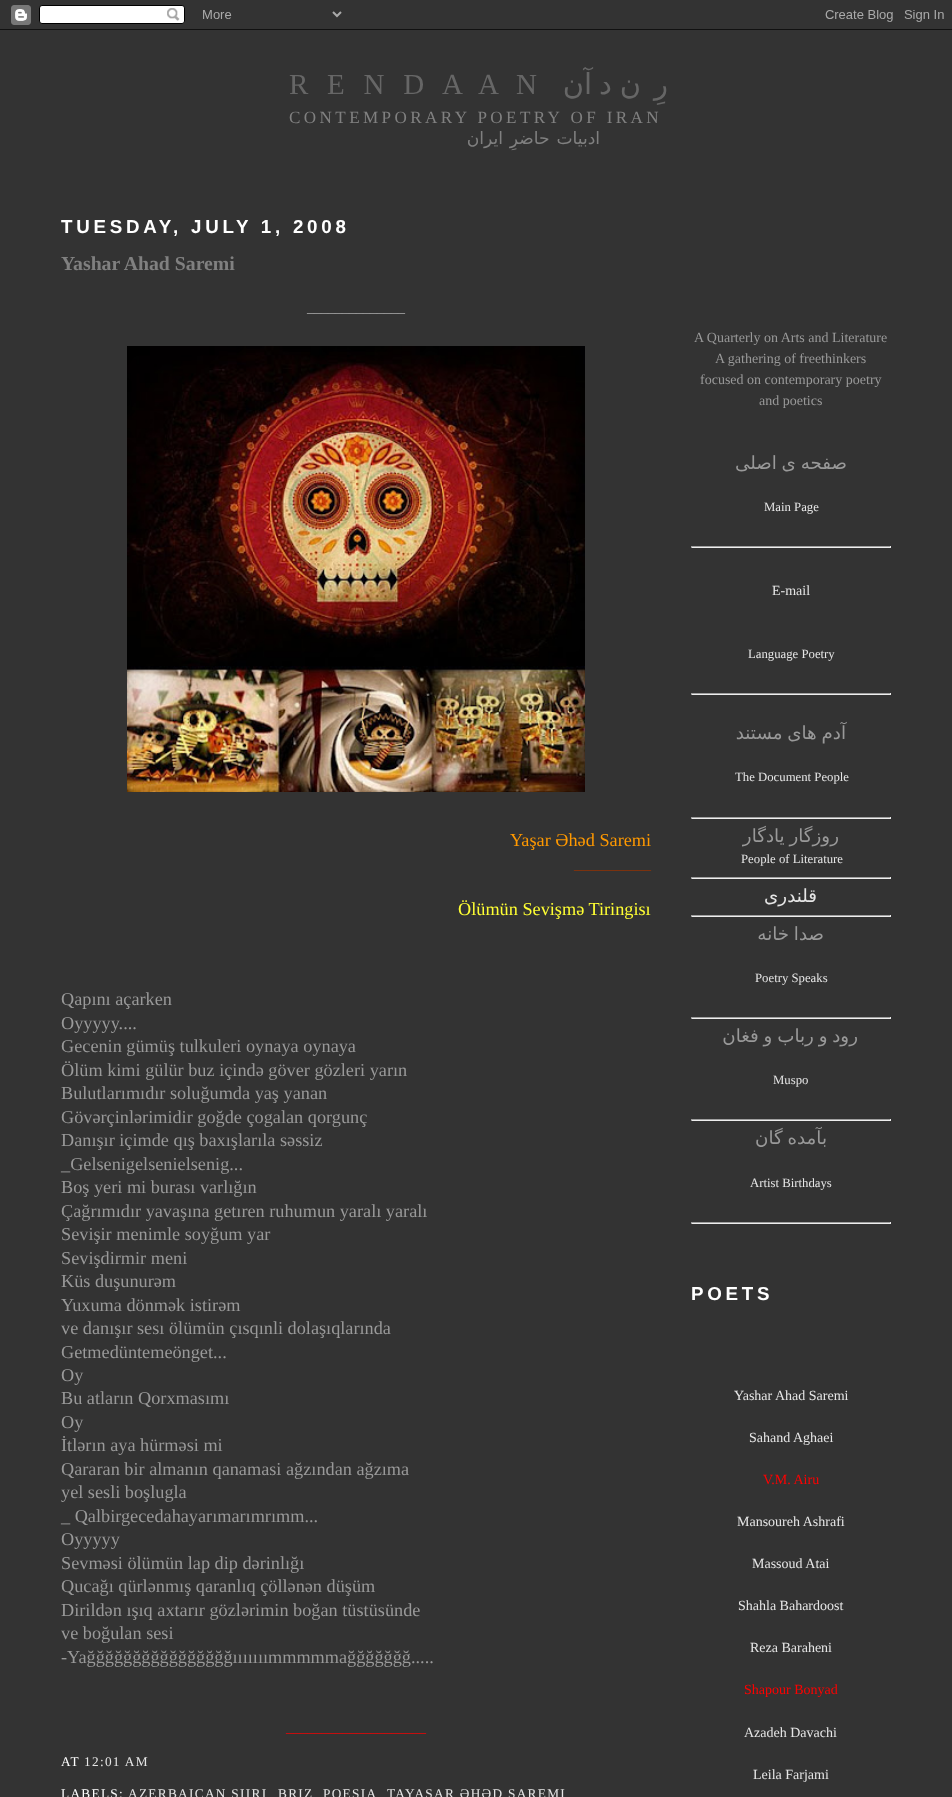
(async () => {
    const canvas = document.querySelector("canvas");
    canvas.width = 952;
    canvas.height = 1797;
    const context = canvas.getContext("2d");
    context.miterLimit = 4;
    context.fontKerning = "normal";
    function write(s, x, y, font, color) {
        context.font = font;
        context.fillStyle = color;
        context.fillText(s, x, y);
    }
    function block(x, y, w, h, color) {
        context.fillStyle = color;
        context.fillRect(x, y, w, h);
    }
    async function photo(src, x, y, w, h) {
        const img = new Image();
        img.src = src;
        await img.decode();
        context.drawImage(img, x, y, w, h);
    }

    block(0, 0, 952, 1797, "rgb(51, 51, 51)");
    await photo("media/1.png", 0, 5, 952, 25);
    context.letterSpacing = "5.75px";
    write("R E N D", 289, 94, "29px Liberation Serif", "rgb(102, 102, 102)");
    write("A", 442, 94, "29px Liberation Serif", "rgb(102, 102, 102)");
    write("A N", 478, 94, "29px Liberation Serif", "rgb(102, 102, 102)");
    context.direction = "rtl";
    write("ن", 584, 94, "29px DejaVu Sans", "rgb(102, 102, 102)");
    write("آ", 592, 94, "29px DejaVu Sans", "rgb(102, 102, 102)");
    write("د", 612, 94, "29px DejaVu Sans", "rgb(102, 102, 102)");
    write("ن", 641, 94, "29px DejaVu Sans", "rgb(102, 102, 102)");
    write("رِ", 668, 94, "29px DejaVu Sans", "rgb(102, 102, 102)");
    context.letterSpacing = "3.4px";
    context.direction = "ltr";
    write("CONTEMPORARY POETRY OF IRAN", 289, 123, "17.1px Liberation Serif", "rgb(128, 128, 128)");
    context.wordSpacing = "-2px";
    context.direction = "rtl";
    write("ادبیات حاضرِ ایران", 600, 144, "17.1px DejaVu Sans", "rgb(128, 128, 128)");
    context.letterSpacing = "3.75px";
    context.wordSpacing = "0px";
    context.direction = "ltr";
    write("TUESDAY, JULY 1, 2008", 61, 233, "bold 18.75px Liberation Sans", "rgb(255, 255, 255)");
    context.letterSpacing = "0px";
    write("Yashar Ahad Saremi", 61, 270, "bold 19.75px Liberation Serif", "rgb(128, 128, 128)");
    write("______________", 307, 312, "14px Liberation Serif", "rgb(179, 179, 179)");
    await photo("media/2.png", 127, 346, 458, 446);
    write("Yaşar Əhəd Saremi", 510, 846, "18.25px Liberation Serif", "rgb(255, 153, 0)");
    write("___________", 574, 869, "14px Liberation Serif", "rgb(153, 51, 0)");
    write("Ölümün Sevişmə Tiringisı", 458, 915, "18.25px Liberation Serif", "rgb(255, 255, 51)");
    write("Qapını açarken", 61, 1005, "18.25px Liberation Serif", "rgb(153, 153, 153)");
    write("Oyyyyy....", 61, 1029, "18.25px Liberation Serif", "rgb(153, 153, 153)");
    write("Gecenin gümüş tulkuleri oynaya oynaya", 61, 1052, "18.25px Liberation Serif", "rgb(153, 153, 153)");
    write("Ölüm kimi gülür buz içində göver gözleri yarın", 61, 1076, "18.25px Liberation Serif", "rgb(153, 153, 153)");
    write("Bulutlarımıdır soluğumda yaş yanan", 61, 1099, "18.25px Liberation Serif", "rgb(153, 153, 153)");
    write("Gövərçinlərimidir goğde çogalan qorgunç", 61, 1123, "18.25px Liberation Serif", "rgb(153, 153, 153)");
    write("Danışır içimde qış baxışlarıla səssiz", 61, 1146, "18.25px Liberation Serif", "rgb(153, 153, 153)");
    write("_Gelsenigelsenielsenig...", 61, 1170, "18.25px Liberation Serif", "rgb(153, 153, 153)");
    write("Boş yeri mi burası varlığın", 61, 1193, "18.25px Liberation Serif", "rgb(153, 153, 153)");
    write("Çağrımıdır yavaşına getıren ruhumun yaralı yaralı", 61, 1217, "18.25px Liberation Serif", "rgb(153, 153, 153)");
    write("Sevişir menimle soyğum yar", 61, 1240, "18.25px Liberation Serif", "rgb(153, 153, 153)");
    write("Sevişdirmir meni", 61, 1264, "18.25px Liberation Serif", "rgb(153, 153, 153)");
    write("Küs duşunurəm", 61, 1287, "18.25px Liberation Serif", "rgb(153, 153, 153)");
    write("Yuxuma dönmək istirəm", 61, 1311, "18.25px Liberation Serif", "rgb(153, 153, 153)");
    write("ve danışır sesı ölümün çısqınli dolaşıqlarında", 61, 1334, "18.25px Liberation Serif", "rgb(153, 153, 153)");
    write("Getmedüntemeönget...", 61, 1358, "18.25px Liberation Serif", "rgb(153, 153, 153)");
    write("Oy", 61, 1381, "18.25px Liberation Serif", "rgb(153, 153, 153)");
    write("Bu atların Qorxmasımı", 61, 1404, "18.25px Liberation Serif", "rgb(153, 153, 153)");
    write("Oy", 61, 1428, "18.25px Liberation Serif", "rgb(153, 153, 153)");
    write("İtlərın aya hürməsi mi", 61, 1451, "18.25px Liberation Serif", "rgb(153, 153, 153)");
    write("Qararan bir almanın qanamasi ağzından ağzıma", 61, 1475, "18.25px Liberation Serif", "rgb(153, 153, 153)");
    write("yel sesli boşlugla", 61, 1498, "18.25px Liberation Serif", "rgb(153, 153, 153)");
    write("_ Qalbirgecedahayarımarımrımm...", 61, 1522, "18.25px Liberation Serif", "rgb(153, 153, 153)");
    write("Oyyyyy", 61, 1545, "18.25px Liberation Serif", "rgb(153, 153, 153)");
    write("Sevməsi ölümün lap dip dərinlığı", 61, 1569, "18.25px Liberation Serif", "rgb(153, 153, 153)");
    write("Qucağı qürlənmış qaranlıq çöllənən düşüm", 61, 1592, "18.25px Liberation Serif", "rgb(153, 153, 153)");
    write("Dirildən ışıq axtarır gözlərimin boğan tüstüsünde", 61, 1616, "18.25px Liberation Serif", "rgb(153, 153, 153)");
    write("ve boğulan sesi", 61, 1639, "18.25px Liberation Serif", "rgb(153, 153, 153)");
    write("-Yağğğğğğğğğğğğğğğğııııııımmmmmağğğğğğğ.....", 61, 1663, "18.25px Liberation Serif", "rgb(153, 153, 153)");
    write("____________________", 286, 1732, "14px Liberation Serif", "rgb(255, 0, 0)");
    context.letterSpacing = "1.3px";
    write("AT", 61, 1766, "13.3px Liberation Serif", "rgb(255, 255, 255)");
    write("12:01 AM", 84, 1766, "13.3px Liberation Serif", "rgb(230, 230, 230)");
    write("LABELS:", 61, 1798, "13.3px Liberation Serif", "rgb(255, 255, 255)");
    write("AZERBAICAN ŞIIRI", 128, 1798, "13.3px Liberation Serif", "rgb(230, 230, 230)");
    write("BRIZ", 278, 1798, "13.3px Liberation Serif", "rgb(230, 230, 230)");
    write("POESIA", 323, 1798, "13.3px Liberation Serif", "rgb(230, 230, 230)");
    write("TAYAŞAR ƏHƏD SAREMI", 387, 1798, "13.3px Liberation Serif", "rgb(230, 230, 230)");
    context.letterSpacing = "0px";
    write("A Quarterly on Arts and Literature", 694, 342, "14px Liberation Serif", "rgb(153, 153, 153)");
    write("A gathering of freethinkers", 715, 363, "14px Liberation Serif", "rgb(153, 153, 153)");
    write("focused on contemporary poetry", 700, 384, "14px Liberation Serif", "rgb(153, 153, 153)");
    write("and poetics", 759, 405, "14px Liberation Serif", "rgb(153, 153, 153)");
    context.wordSpacing = "-1px";
    context.direction = "rtl";
    write("صفحه ی اصلی", 847, 469, "18.25px DejaVu Sans", "rgb(153, 153, 153)");
    context.wordSpacing = "0px";
    context.direction = "ltr";
    write("Main Page", 764, 511, "12.75px Liberation Serif", "rgb(230, 230, 230)");
    block(691, 546, 200, 1, "rgb(159, 159, 159)");
    block(890, 546, 1, 2, "rgb(238, 238, 238)");
    block(691, 547, 200, 1, "rgb(238, 238, 238)");
    block(691, 546, 1, 2, "rgb(159, 159, 159)");
    write("E-mail", 772, 595, "14px Liberation Serif", "rgb(230, 230, 230)");
    write("Language Poetry", 748, 658, "12.75px Liberation Serif", "rgb(230, 230, 230)");
    block(691, 693, 200, 1, "rgb(159, 159, 159)");
    block(890, 693, 1, 2, "rgb(238, 238, 238)");
    block(691, 694, 200, 1, "rgb(238, 238, 238)");
    block(691, 693, 1, 2, "rgb(159, 159, 159)");
    context.wordSpacing = "-1px";
    context.direction = "rtl";
    write("آدم های مستند", 846, 739, "18.25px DejaVu Sans", "rgb(153, 153, 153)");
    context.wordSpacing = "0px";
    context.direction = "ltr";
    write("The Document People", 735, 781, "12.75px Liberation Serif", "rgb(230, 230, 230)");
    block(691, 817, 200, 1, "rgb(159, 159, 159)");
    block(890, 817, 1, 2, "rgb(238, 238, 238)");
    block(691, 818, 200, 1, "rgb(238, 238, 238)");
    block(691, 817, 1, 2, "rgb(159, 159, 159)");
    context.wordSpacing = "-1px";
    context.direction = "rtl";
    write("روزگار یادگار", 839, 842, "18.25px DejaVu Sans", "rgb(153, 153, 153)");
    context.wordSpacing = "0px";
    context.direction = "ltr";
    write("People of Literature", 741, 863, "12.75px Liberation Serif", "rgb(230, 230, 230)");
    block(691, 877, 200, 1, "rgb(159, 159, 159)");
    block(890, 877, 1, 2, "rgb(238, 238, 238)");
    block(691, 878, 200, 1, "rgb(238, 238, 238)");
    block(691, 877, 1, 2, "rgb(159, 159, 159)");
    context.direction = "rtl";
    write("قلندری", 817, 902, "18.25px DejaVu Sans", "rgb(230, 230, 230)");
    block(691, 915, 200, 1, "rgb(159, 159, 159)");
    block(890, 915, 1, 2, "rgb(238, 238, 238)");
    block(691, 916, 200, 1, "rgb(238, 238, 238)");
    block(691, 915, 1, 2, "rgb(159, 159, 159)");
    context.wordSpacing = "-1px";
    write("صدا خانه", 824, 940, "18.25px DejaVu Sans", "rgb(153, 153, 153)");
    context.wordSpacing = "0px";
    context.direction = "ltr";
    write("Poetry Speaks", 755, 982, "12.75px Liberation Serif", "rgb(230, 230, 230)");
    block(691, 1017, 200, 1, "rgb(159, 159, 159)");
    block(890, 1017, 1, 2, "rgb(238, 238, 238)");
    block(691, 1018, 200, 1, "rgb(238, 238, 238)");
    block(691, 1017, 1, 2, "rgb(159, 159, 159)");
    context.wordSpacing = "-1px";
    context.direction = "rtl";
    write("رود و رباب و فغان", 858, 1042, "18.25px DejaVu Sans", "rgb(153, 153, 153)");
    context.wordSpacing = "0px";
    context.direction = "ltr";
    write("Muspo", 773, 1084, "12.75px Liberation Serif", "rgb(230, 230, 230)");
    block(691, 1119, 200, 1, "rgb(159, 159, 159)");
    block(890, 1119, 1, 2, "rgb(238, 238, 238)");
    block(691, 1120, 200, 1, "rgb(238, 238, 238)");
    block(691, 1119, 1, 2, "rgb(159, 159, 159)");
    context.wordSpacing = "-1px";
    context.direction = "rtl";
    write("بآمده گان", 827, 1144, "18.25px DejaVu Sans", "rgb(153, 153, 153)");
    context.wordSpacing = "0px";
    context.direction = "ltr";
    write("Artist Birthdays", 750, 1187, "12.75px Liberation Serif", "rgb(230, 230, 230)");
    block(691, 1222, 200, 1, "rgb(159, 159, 159)");
    block(890, 1222, 1, 2, "rgb(238, 238, 238)");
    block(691, 1223, 200, 1, "rgb(238, 238, 238)");
    block(691, 1222, 1, 2, "rgb(159, 159, 159)");
    context.letterSpacing = "3.75px";
    write("POETS", 691, 1300, "bold 18.75px Liberation Sans", "rgb(255, 255, 255)");
    context.letterSpacing = "0px";
    write("Yashar Ahad Saremi", 734, 1400, "14px Liberation Serif", "rgb(230, 230, 230)");
    write("Sahand", 749, 1442, "14px Liberation Serif", "rgb(230, 230, 230)");
    write("Aghaei", 793, 1442, "14px Liberation Serif", "rgb(230, 230, 230)");
    write("V.M. Airu", 763, 1484, "14px Liberation Serif", "rgb(255, 0, 0)");
    write("Mansoureh Ashrafi", 737, 1526, "14px Liberation Serif", "rgb(230, 230, 230)");
    write("Massoud Atai", 752, 1568, "14px Liberation Serif", "rgb(230, 230, 230)");
    write("Shahla Bahardoost", 738, 1610, "14px Liberation Serif", "rgb(230, 230, 230)");
    write("Reza Baraheni", 750, 1652, "14px Liberation Serif", "rgb(230, 230, 230)");
    write("Shapour Bonyad", 744, 1694, "14px Liberation Serif", "rgb(255, 0, 0)");
    write("Azadeh Davachi", 744, 1737, "14px Liberation Serif", "rgb(230, 230, 230)");
    write("Leila Farjami", 753, 1779, "14px Liberation Serif", "rgb(230, 230, 230)");
})();
